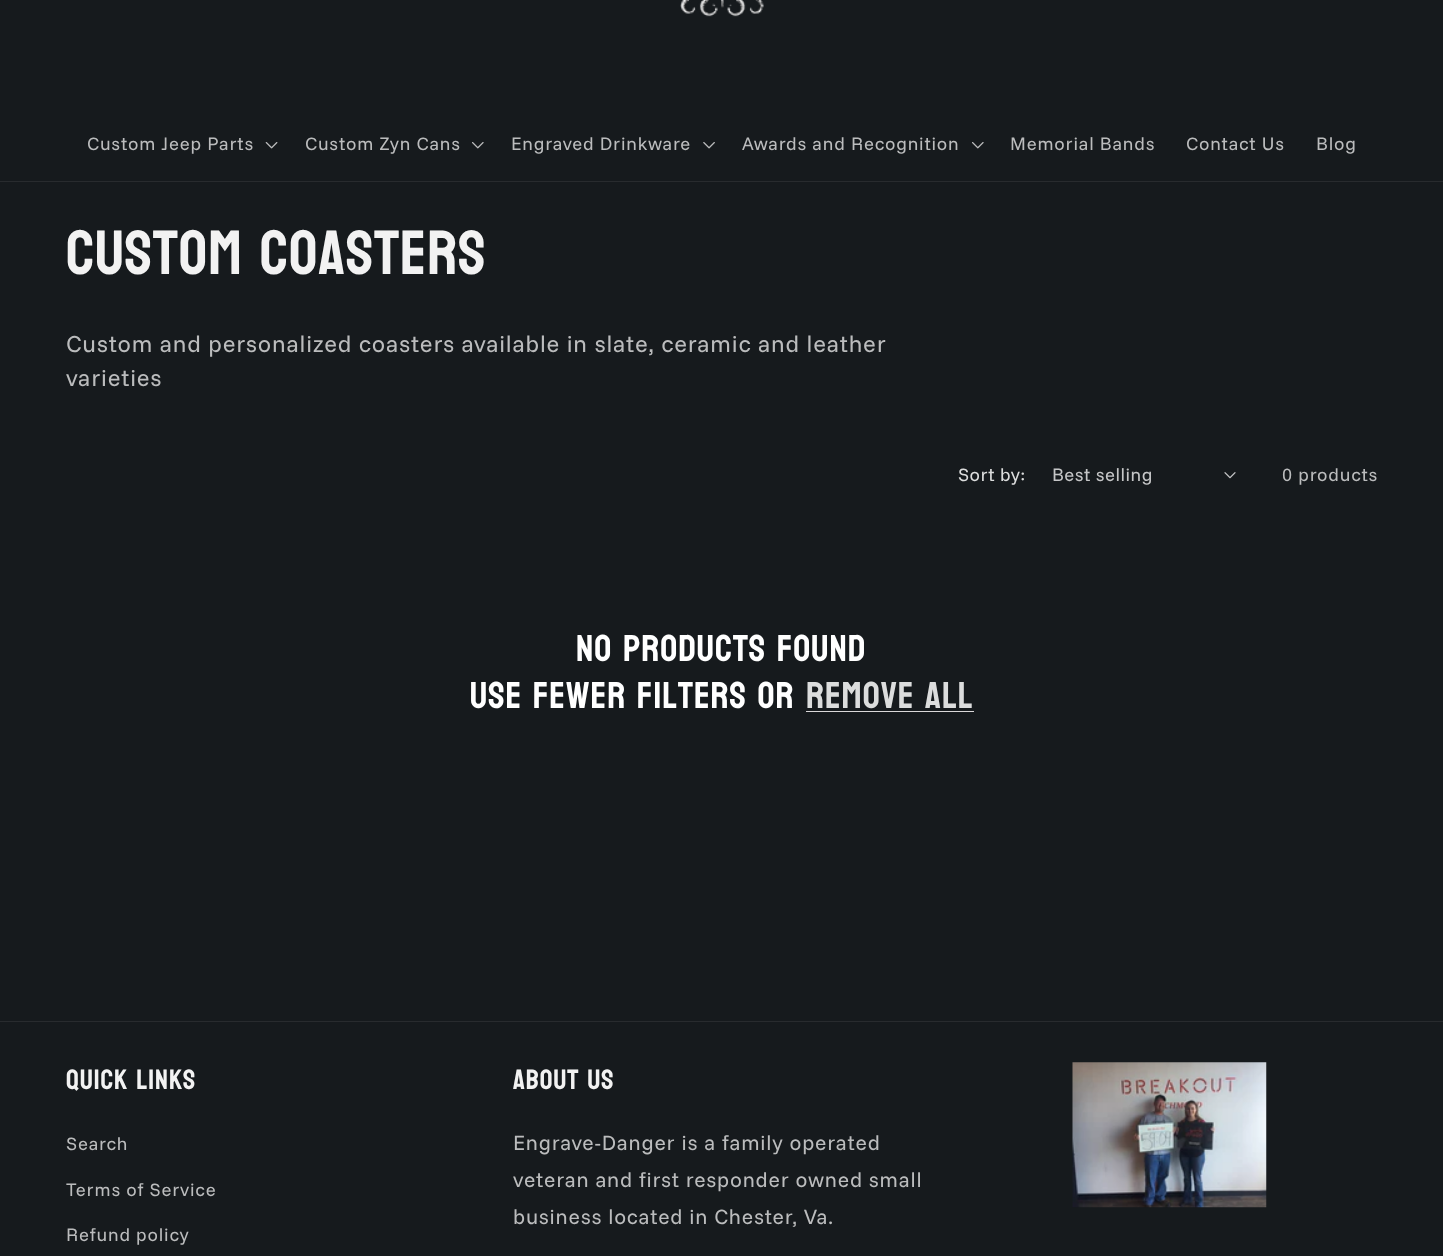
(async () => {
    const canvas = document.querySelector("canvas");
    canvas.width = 1443;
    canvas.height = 1256;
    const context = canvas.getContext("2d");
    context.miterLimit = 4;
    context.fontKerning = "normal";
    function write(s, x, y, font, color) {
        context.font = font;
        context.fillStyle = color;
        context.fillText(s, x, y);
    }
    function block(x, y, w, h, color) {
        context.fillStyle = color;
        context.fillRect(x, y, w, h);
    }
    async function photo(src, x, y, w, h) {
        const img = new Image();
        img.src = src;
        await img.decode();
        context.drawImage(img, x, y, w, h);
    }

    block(0, 0, 1443, 1256, "rgb(22, 26, 29)");
    block(0, 181, 1443, 1, "rgb(40, 43, 46)");
    await photo("media/1.png", 680, 0, 84, 17);
    context.letterSpacing = "0.8px";
    write("Custom Jeep Parts", 87, 150, "18.4px Funnel Sans", "rgb(187, 188, 189)");
    await photo("media/2.png", 265, 142, 13, 7);
    write("Custom Zyn Cans", 305, 150, "18.4px Funnel Sans", "rgb(187, 188, 189)");
    await photo("media/3.png", 472, 142, 12, 7);
    write("Engraved Drinkware", 511, 150, "18.4px Funnel Sans", "rgb(187, 188, 189)");
    await photo("media/4.png", 703, 142, 12, 7);
    write("Awards and Recognition", 742, 150, "18.4px Funnel Sans", "rgb(187, 188, 189)");
    await photo("media/3.png", 972, 142, 12, 7);
    write("Memorial Bands", 1010, 150, "18.4px Funnel Sans", "rgb(187, 188, 189)");
    write("Contact Us", 1186, 150, "18.4px Funnel Sans", "rgb(187, 188, 189)");
    write("Blog", 1316, 150, "18.4px Funnel Sans", "rgb(187, 188, 189)");
    context.letterSpacing = "0.9px";
    write("Custom Coasters", 66, 274, "62.5px Bayon", "rgb(242, 242, 242)");
    context.letterSpacing = "0.8px";
    write("Custom and personalized coasters available in slate, ceramic and leather", 66, 352, "23.6px Funnel Sans", "rgb(187, 188, 189)");
    write("varieties", 66, 386, "23.6px Funnel Sans", "rgb(187, 188, 189)");
    context.letterSpacing = "0.5px";
    write("Sort by:", 958, 481, "18.4px Funnel Sans", "rgb(220, 221, 221)");
    write("Best selling", 1052, 481, "18.4px Funnel Sans", "rgb(197, 198, 199)");
    await photo("media/5.png", 1224, 472, 12, 7);
    context.letterSpacing = "0.8px";
    write("0 products", 1282, 481, "18.4px Funnel Sans", "rgb(187, 188, 189)");
    context.letterSpacing = "0.9px";
    write("No products found", 576, 661, "37.5px Bayon", "rgb(255, 255, 255)");
    write("Use fewer filters or", 470, 708, "37.5px Bayon", "rgb(255, 255, 255)");
    write("remove all", 806, 708, "37.5px Bayon", "rgb(220, 221, 221)");
    block(806, 711, 168, 1, "rgb(218, 216, 217)");
    block(0, 1021, 1443, 1, "rgb(40, 43, 46)");
    write("Quick links", 66, 1089, "28px Bayon", "rgb(242, 242, 242)");
    context.letterSpacing = "0.8px";
    write("Search", 66, 1150, "18.4px Funnel Sans", "rgb(187, 188, 189)");
    write("Terms of Service", 66, 1196, "18.4px Funnel Sans", "rgb(187, 188, 189)");
    write("Refund policy", 66, 1241, "18.4px Funnel Sans", "rgb(187, 188, 189)");
    context.letterSpacing = "0.9px";
    write("About Us", 513, 1089, "28px Bayon", "rgb(242, 242, 242)");
    context.letterSpacing = "0.8px";
    write("Engrave-Danger is a family operated", 513, 1150, "21px Funnel Sans", "rgb(187, 188, 189)");
    write("veteran and first responder owned small", 513, 1187, "21px Funnel Sans", "rgb(187, 188, 189)");
    write("business located in Chester, Va.", 513, 1224, "21px Funnel Sans", "rgb(187, 188, 189)");
    await photo("media/6.png", 1072, 1062, 195, 146);
})();
